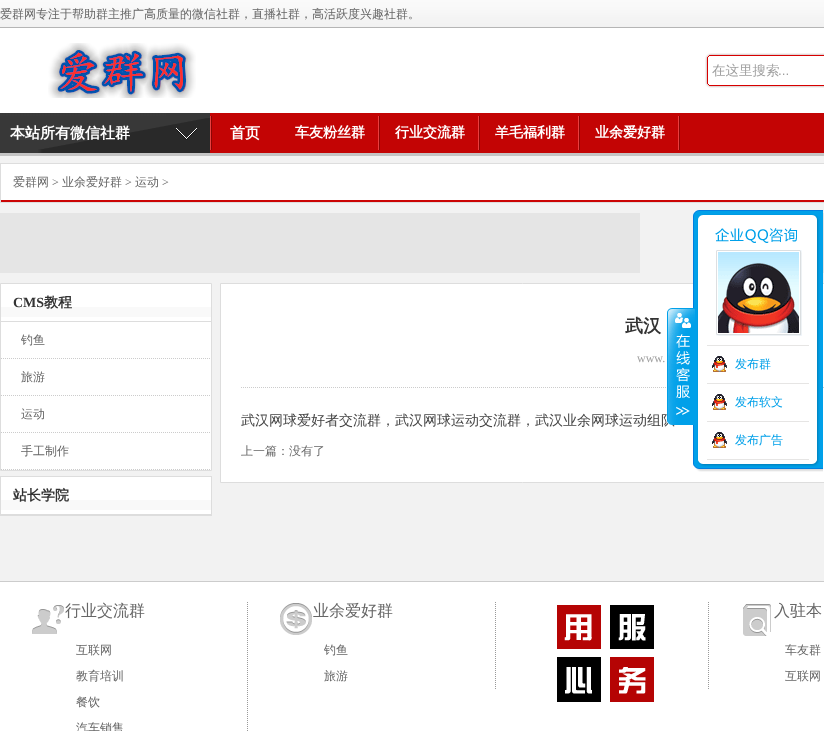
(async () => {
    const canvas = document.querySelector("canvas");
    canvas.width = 824;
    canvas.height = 731;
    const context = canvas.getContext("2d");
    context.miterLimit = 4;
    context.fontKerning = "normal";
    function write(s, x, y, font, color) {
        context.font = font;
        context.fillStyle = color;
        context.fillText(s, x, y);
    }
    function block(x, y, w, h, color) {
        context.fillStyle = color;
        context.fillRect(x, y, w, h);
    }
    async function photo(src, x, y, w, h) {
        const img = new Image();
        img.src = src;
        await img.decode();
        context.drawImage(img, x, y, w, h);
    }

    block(0, 0, 824, 731, "rgb(242, 242, 242)");
    await photo("media/1.png", 0, 0, 824, 28);
    write("爱群网专注于帮助群主推广高质量的微信社群，直播社群，高活跃度兴趣社群。", 0, 18, "500 12px WenQuanYi Zen Hei", "rgb(102, 102, 102)");
    block(0, 28, 824, 85, "rgb(255, 255, 255)");
    await photo("media/2.png", 48, 43, 148, 55);
    await photo("media/3.png", 705, 53, 119, 35);
    write("在这里搜索", 712, 75, "500 13.5px WenQuanYi Zen Hei", "rgb(158, 158, 158)");
    write("...", 778, 75, "13.5px Liberation Sans", "rgb(158, 158, 158)");
    block(210, 113, 614, 40, "rgb(195, 4, 4)");
    await photo("media/4.png", 0, 113, 210, 40);
    write("本站所有微信社群", 10, 138, "bold 15px WenQuanYi Zen Hei", "rgb(255, 255, 255)");
    await photo("media/5.png", 210, 116, 2, 34);
    write("首页", 230, 138, "bold 15px WenQuanYi Zen Hei", "rgb(255, 255, 255)");
    await photo("media/5.png", 378, 116, 2, 34);
    write("车友粉丝群", 295, 137, "bold 14px WenQuanYi Zen Hei", "rgb(255, 255, 255)");
    await photo("media/5.png", 478, 116, 2, 34);
    write("行业交流群", 395, 137, "bold 14px WenQuanYi Zen Hei", "rgb(255, 255, 255)");
    await photo("media/5.png", 578, 116, 2, 34);
    write("羊毛福利群", 495, 137, "bold 14px WenQuanYi Zen Hei", "rgb(255, 255, 255)");
    await photo("media/5.png", 678, 116, 2, 34);
    write("业余爱好群", 595, 137, "bold 14px WenQuanYi Zen Hei", "rgb(255, 255, 255)");
    block(0, 153, 824, 3, "rgb(196, 196, 196)");
    block(1, 164, 823, 36, "rgb(255, 255, 255)");
    context.strokeStyle = "rgb(221, 221, 221)";
    context.strokeRect(0.5, 163.5, 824, 39);
    block(1, 200, 823, 2, "rgb(203, 4, 4)");
    write("爱群网", 13, 186, "500 12px WenQuanYi Zen Hei", "rgb(102, 102, 102)");
    write(">", 52, 186, "12px Liberation Serif", "rgb(102, 102, 102)");
    write("业余爱好群", 62, 186, "500 12px WenQuanYi Zen Hei", "rgb(102, 102, 102)");
    write(">", 125, 186, "12px Liberation Serif", "rgb(102, 102, 102)");
    write("运动", 135, 186, "500 12px WenQuanYi Zen Hei", "rgb(102, 102, 102)");
    write(">", 162, 186, "12px Liberation Serif", "rgb(102, 102, 102)");
    block(0, 213, 640, 60, "rgb(229, 229, 229)");
    block(823, 213, 1, 60, "rgb(229, 229, 229)");
    context.fillStyle = "rgb(255, 255, 255)";
    context.beginPath();
    context.rect(0.5, 283.5, 211, 187);
    context.fill();
    context.stroke();
    block(1, 307, 210, 10, "rgb(249, 249, 249)");
    block(1, 321, 210, 1, "rgb(221, 221, 221)");
    write("CMS", 13, 307, "bold 14px Liberation Serif", "rgb(51, 51, 51)");
    write("教程", 44, 307, "bold 14px WenQuanYi Zen Hei", "rgb(51, 51, 51)");
    context.beginPath();
    context.moveTo(1, 358.5);
    context.lineTo(211, 358.5);
    context.strokeStyle = "rgb(204, 204, 204)";
    context.setLineDash([1, 1]);
    context.stroke();
    write("钓鱼", 21, 344, "500 12px WenQuanYi Zen Hei", "rgb(102, 102, 102)");
    context.beginPath();
    context.moveTo(1, 395.5);
    context.lineTo(211, 395.5);
    context.stroke();
    write("旅游", 21, 381, "500 12px WenQuanYi Zen Hei", "rgb(102, 102, 102)");
    context.beginPath();
    context.moveTo(1, 432.5);
    context.lineTo(211, 432.5);
    context.stroke();
    write("运动", 21, 418, "500 12px WenQuanYi Zen Hei", "rgb(102, 102, 102)");
    context.beginPath();
    context.moveTo(1, 469.5);
    context.lineTo(211, 469.5);
    context.stroke();
    write("手工制作", 21, 455, "500 12px WenQuanYi Zen Hei", "rgb(102, 102, 102)");
    block(1, 477, 210, 37, "rgb(255, 255, 255)");
    context.strokeStyle = "rgb(221, 221, 221)";
    context.setLineDash([]);
    context.strokeRect(0.5, 476.5, 211, 39);
    block(1, 500, 210, 10, "rgb(249, 249, 249)");
    block(1, 514, 210, 1, "rgb(221, 221, 221)");
    write("站长学院", 13, 500, "bold 14px WenQuanYi Zen Hei", "rgb(51, 51, 51)");
    context.fillStyle = "rgb(255, 255, 255)";
    context.beginPath();
    context.rect(220.5, 283.5, 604, 199);
    context.fill();
    context.stroke();
    context.beginPath();
    context.moveTo(241, 387.5);
    context.lineTo(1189, 387.5);
    context.strokeStyle = "rgb(204, 204, 204)";
    context.setLineDash([1, 1]);
    context.stroke();
    write("武汉", 625, 332, "bold 18px WenQuanYi Zen Hei", "rgb(51, 51, 51)");
    write("www.", 637, 362, "12px Liberation Serif", "rgb(158, 158, 158)");
    write("武汉网球爱好者交流群，武汉网球运动交流群，武汉业余网球运动组队", 241, 425, "500 14px WenQuanYi Zen Hei", "rgb(68, 68, 68)");
    write("上一篇：没有了", 241, 455, "500 12px WenQuanYi Zen Hei", "rgb(102, 102, 102)");
    await photo("media/9.png", 693, 220, 130, 240);
    await photo("media/6.png", 667, 308, 28, 117);
    await photo("media/7.png", 693, 460, 130, 12);
    await photo("media/8.png", 693, 210, 130, 10);
    block(707, 345, 102, 1, "rgb(230, 229, 228)");
    await photo("media/10.png", 715, 228, 87, 108);
    block(707, 383, 102, 1, "rgb(230, 229, 228)");
    await photo("media/11.png", 712, 356, 15, 16);
    write("发布群", 735, 368, "500 12px WenQuanYi Zen Hei", "rgb(0, 160, 233)");
    block(707, 421, 102, 1, "rgb(230, 229, 228)");
    await photo("media/11.png", 712, 394, 15, 16);
    write("发布软文", 735, 406, "500 12px WenQuanYi Zen Hei", "rgb(0, 160, 233)");
    block(707, 459, 102, 1, "rgb(230, 229, 228)");
    await photo("media/11.png", 712, 432, 15, 16);
    write("发布广告", 735, 444, "500 12px WenQuanYi Zen Hei", "rgb(0, 160, 233)");
    block(0, 582, 824, 149, "rgb(255, 255, 255)");
    block(0, 581, 824, 1, "rgb(204, 204, 204)");
    context.beginPath();
    context.moveTo(247.5, 602);
    context.lineTo(247.5, 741);
    context.strokeStyle = "rgb(153, 153, 153)";
    context.stroke();
    await photo("media/12.png", 32, 605, 32, 29);
    write("行业交流群", 65, 616, "500 16px WenQuanYi Zen Hei", "rgb(102, 102, 102)");
    write("互联网", 76, 654, "500 12px WenQuanYi Zen Hei", "rgb(102, 102, 102)");
    write("教育培训", 76, 680, "500 12px WenQuanYi Zen Hei", "rgb(102, 102, 102)");
    write("餐饮", 76, 706, "500 12px WenQuanYi Zen Hei", "rgb(102, 102, 102)");
    write("汽车销售", 76, 732, "500 12px WenQuanYi Zen Hei", "rgb(102, 102, 102)");
    context.beginPath();
    context.moveTo(495.5, 602);
    context.lineTo(495.5, 689);
    context.stroke();
    await photo("media/13.png", 280, 603, 32, 32);
    write("业余爱好群", 313, 616, "500 16px WenQuanYi Zen Hei", "rgb(102, 102, 102)");
    write("钓鱼", 324, 654, "500 12px WenQuanYi Zen Hei", "rgb(102, 102, 102)");
    write("旅游", 324, 680, "500 12px WenQuanYi Zen Hei", "rgb(102, 102, 102)");
    await photo("media/14.png", 557, 605, 97, 97);
    context.beginPath();
    context.moveTo(708.5, 602);
    context.lineTo(708.5, 689);
    context.stroke();
    await photo("media/15.png", 743, 604, 28, 32);
    write("入驻本", 774, 616, "500 16px WenQuanYi Zen Hei", "rgb(102, 102, 102)");
    write("车友群", 785, 654, "500 12px WenQuanYi Zen Hei", "rgb(102, 102, 102)");
    write("互联网", 785, 680, "500 12px WenQuanYi Zen Hei", "rgb(102, 102, 102)");
})();
